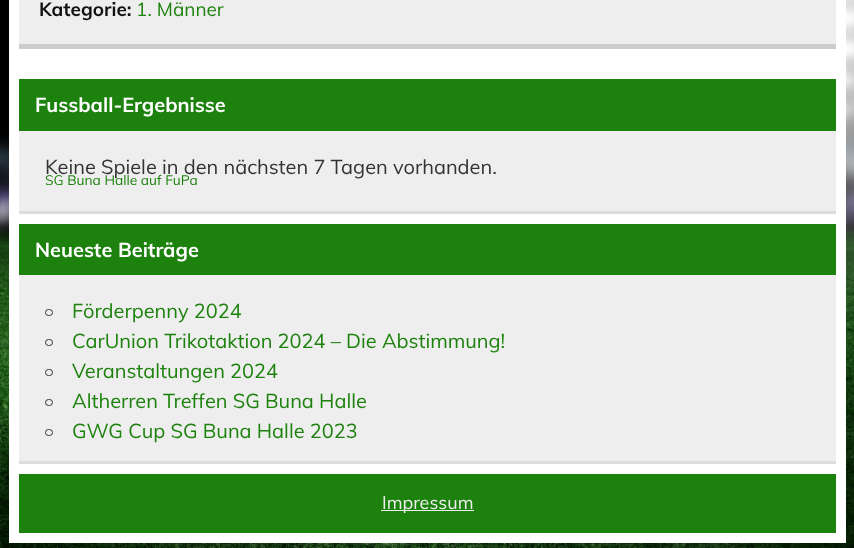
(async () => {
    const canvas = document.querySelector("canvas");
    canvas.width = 854;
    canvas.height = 548;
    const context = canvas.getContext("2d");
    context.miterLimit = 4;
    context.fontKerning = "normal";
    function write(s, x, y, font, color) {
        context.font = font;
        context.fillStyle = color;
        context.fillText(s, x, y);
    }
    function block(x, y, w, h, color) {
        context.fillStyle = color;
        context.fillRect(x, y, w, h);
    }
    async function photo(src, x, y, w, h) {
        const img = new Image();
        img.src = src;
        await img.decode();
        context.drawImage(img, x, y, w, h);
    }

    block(0, 0, 854, 548, "rgb(255, 255, 255)");
    await photo("media/1.png", 0, 0, 854, 548);
    block(9, 0, 837, 543, "rgb(255, 255, 255)");
    block(19, 0, 817, 44, "rgb(238, 238, 238)");
    block(19, 44, 817, 5, "rgb(204, 204, 204)");
    write("Kategorie:", 39, 16, "bold 19px Muli", "rgb(17, 17, 17)");
    write("1. Männer", 136, 16, "19px Muli", "rgb(29, 130, 13)");
    block(19, 131, 817, 80, "rgb(238, 238, 238)");
    block(19, 211, 817, 3, "rgb(221, 221, 221)");
    block(19, 79, 817, 52, "rgb(29, 130, 13)");
    write("Fussball-Ergebnisse", 35, 112, "bold 20px Muli", "rgb(255, 255, 255)");
    write("Keine Spiele in den nächsten 7 Tagen vorhanden.", 45, 174, "20px Muli", "rgb(51, 51, 51)");
    write("SG Buna Halle auf FuPa", 45, 185, "13.75px Muli", "rgb(29, 130, 13)");
    block(19, 275, 817, 186, "rgb(238, 238, 238)");
    block(19, 461, 817, 3, "rgb(221, 221, 221)");
    block(19, 224, 817, 51, "rgb(29, 130, 13)");
    write("Neueste Beiträge", 35, 257, "bold 20px Muli", "rgb(255, 255, 255)");
    context.beginPath();
    context.roundRect(45.5, 309.5, 7, 6, 3);
    context.strokeStyle = "rgb(51, 51, 51)";
    context.stroke();
    write("Förderpenny 2024", 72, 318, "20px Muli", "rgb(29, 130, 13)");
    context.beginPath();
    context.roundRect(45.5, 339.5, 7, 6, 3);
    context.stroke();
    write("CarUnion Trikotaktion 2024 – Die Abstimmung!", 72, 348, "20px Muli", "rgb(29, 130, 13)");
    context.beginPath();
    context.roundRect(45.5, 369.5, 7, 6, 3);
    context.stroke();
    write("Veranstaltungen 2024", 72, 378, "20px Muli", "rgb(29, 130, 13)");
    context.beginPath();
    context.roundRect(45.5, 399.5, 7, 6, 3);
    context.stroke();
    write("Altherren Treffen SG Buna Halle", 72, 408, "20px Muli", "rgb(29, 130, 13)");
    context.beginPath();
    context.roundRect(45.5, 429.5, 7, 6, 3);
    context.stroke();
    write("GWG Cup SG Buna Halle 2023", 72, 438, "20px Muli", "rgb(29, 130, 13)");
    block(19, 474, 817, 59, "rgb(29, 130, 13)");
    block(381, 510, 93, 1, "rgb(238, 238, 238)");
    write("Impressum", 382, 509, "18px Muli", "rgb(238, 238, 238)");
})();
